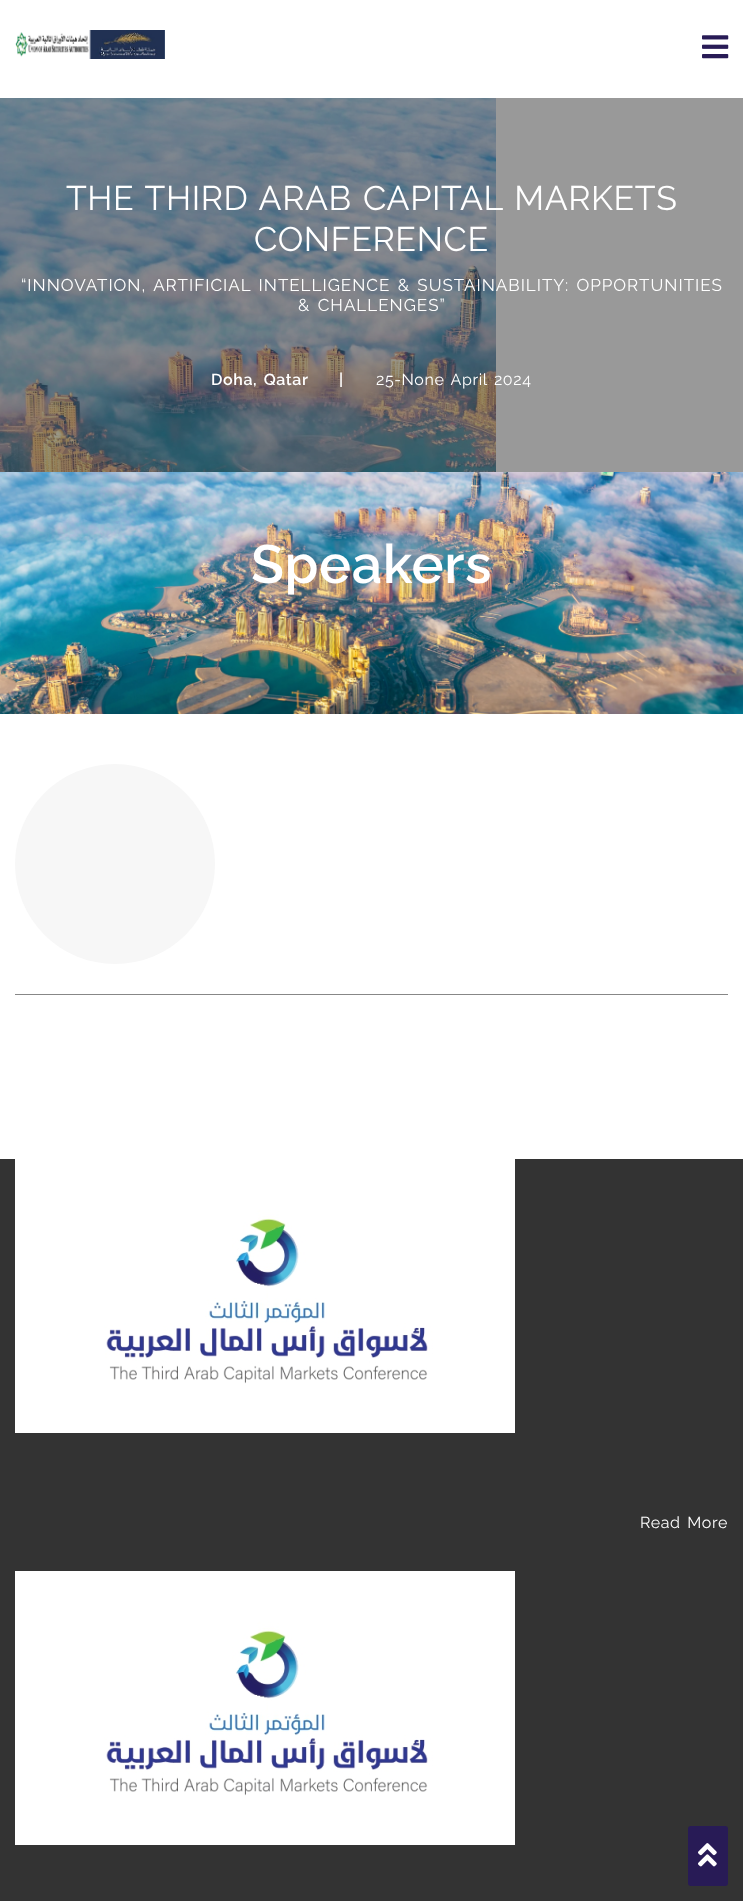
(async () => {
    const canvas = document.querySelector("canvas");
    canvas.width = 743;
    canvas.height = 1901;
    const context = canvas.getContext("2d");
    context.miterLimit = 4;
    context.fontKerning = "normal";
    function write(s, x, y, font, color) {
        context.font = font;
        context.fillStyle = color;
        context.fillText(s, x, y);
    }
    function block(x, y, w, h, color) {
        context.fillStyle = color;
        context.fillRect(x, y, w, h);
    }
    function card(x, y, w, h, r, color) {
        context.fillStyle = color;
        context.beginPath();
        context.roundRect(x, y, w, h, r);
        context.fill();
    }
    async function photo(src, x, y, w, h) {
        const img = new Image();
        img.src = src;
        await img.decode();
        context.drawImage(img, x, y, w, h);
    }

    block(0, 0, 743, 1901, "rgb(255, 255, 255)");
    block(496, 98, 247, 374, "rgb(153, 153, 153)");
    await photo("media/1.png", 15, 30, 150, 29);
    await photo("media/2.png", 702, 35, 27, 24);
    await photo("media/3.png", 0, 98, 496, 374);
    context.letterSpacing = "0.6px";
    context.wordSpacing = "2px";
    write("THE THIRD ARAB CAPITAL MARKETS", 66, 210, "34px Raleway", "rgb(255, 255, 255)");
    context.wordSpacing = "0px";
    write("CONFERENCE", 254, 251, "34px Raleway", "rgb(255, 255, 255)");
    context.letterSpacing = "1px";
    context.wordSpacing = "2px";
    write("“INNOVATION, ARTIFICIAL INTELLIGENCE & SUSTAINABILITY: OPPORTUNITIES", 21, 291, "17px Raleway", "rgb(255, 255, 255)");
    write("& CHALLENGES”", 298, 311, "17px Raleway", "rgb(255, 255, 255)");
    context.letterSpacing = "0.6px";
    write("Doha, Qatar", 211, 385, "600 16px Raleway", "rgb(255, 255, 255)");
    context.wordSpacing = "0px";
    write("|", 339, 385, "600 16px Raleway", "rgb(255, 255, 255)");
    context.wordSpacing = "2px";
    write("25-None April 2024", 376, 385, "16px Raleway", "rgb(255, 255, 255)");
    await photo("media/4.png", 0, 472, 743, 242);
    context.wordSpacing = "0px";
    write("Speakers", 251, 583, "600 54px Raleway", "rgb(255, 255, 255)");
    block(15, 994, 713, 1, "rgb(135, 135, 135)");
    context.fillStyle = "rgb(247, 247, 247)";
    context.beginPath();
    context.arc(115, 864, 100, 0, Math.PI * 2);
    context.fill();
    block(0, 1159, 743, 742, "rgb(51, 51, 51)");
    await photo("media/5.png", 15, 1159, 500, 274);
    context.wordSpacing = "2px";
    write("Read More", 640, 1528, "16px Raleway", "rgb(255, 255, 255)");
    await photo("media/5.png", 15, 1571, 500, 274);
    card(688, 1826, 40, 60, 3, "rgb(40, 27, 86)");
    await photo("media/6.png", 698, 1843, 19, 24);
})();
